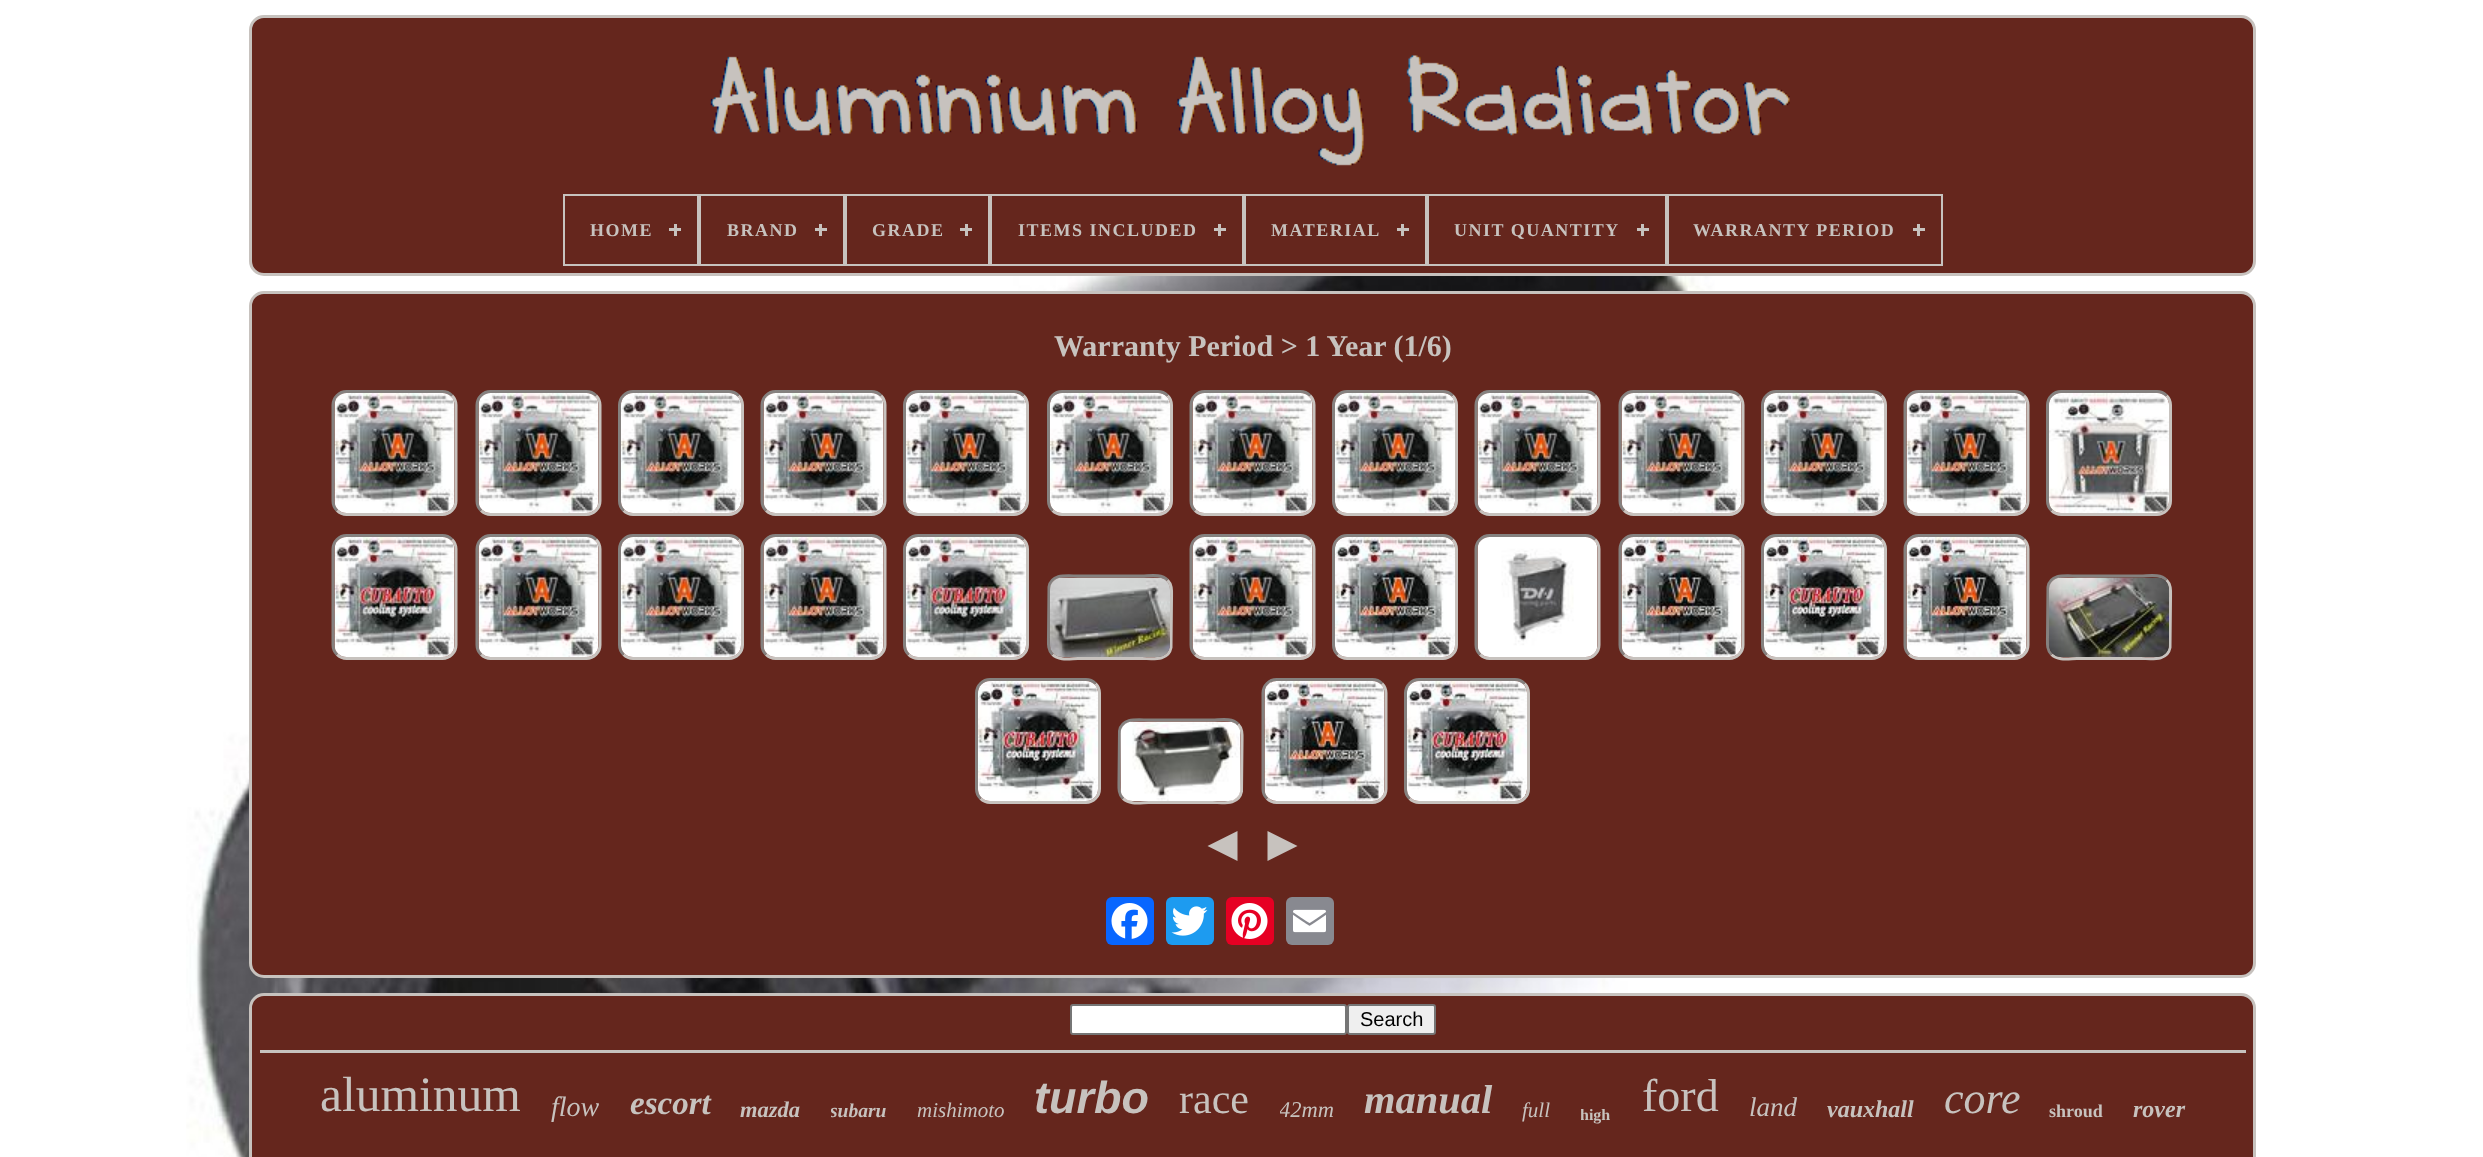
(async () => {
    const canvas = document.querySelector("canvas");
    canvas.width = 2483;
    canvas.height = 1157;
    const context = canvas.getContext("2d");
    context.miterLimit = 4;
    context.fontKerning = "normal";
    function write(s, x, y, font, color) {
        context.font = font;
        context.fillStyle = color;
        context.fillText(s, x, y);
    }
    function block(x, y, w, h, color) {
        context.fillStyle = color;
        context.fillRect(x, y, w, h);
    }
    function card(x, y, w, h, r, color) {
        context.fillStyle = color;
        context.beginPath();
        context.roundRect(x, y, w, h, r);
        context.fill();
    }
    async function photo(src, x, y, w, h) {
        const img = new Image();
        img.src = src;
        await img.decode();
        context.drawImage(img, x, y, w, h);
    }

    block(0, 0, 2483, 1157, "rgb(255, 255, 255)");
    await photo("media/1.png", 186, 110, 1685, 1047);
    context.fillStyle = "rgb(101, 38, 29)";
    context.beginPath();
    context.roundRect(250.5, 16.5, 2004, 258, 13.5);
    context.fill();
    context.strokeStyle = "rgb(199, 194, 190)";
    context.lineWidth = 3;
    context.stroke();
    await photo("media/2.png", 710, 55, 1080, 111);
    context.lineWidth = 2;
    context.strokeRect(564, 195, 134, 70);
    context.letterSpacing = "1.5px";
    write("HOME", 590, 236, "bold 18px Liberation Serif", "rgb(199, 194, 190)");
    block(674, 224, 3, 12, "rgb(199, 194, 190)");
    block(669, 228, 12, 3, "rgb(199, 194, 190)");
    context.strokeRect(700, 195, 144, 70);
    write("BRAND", 727, 236, "bold 18px Liberation Serif", "rgb(199, 194, 190)");
    block(819, 224, 3, 12, "rgb(199, 194, 190)");
    block(815, 228, 12, 3, "rgb(199, 194, 190)");
    context.strokeRect(846, 195, 143, 70);
    write("GRADE", 872, 236, "bold 18px Liberation Serif", "rgb(199, 194, 190)");
    block(965, 224, 3, 12, "rgb(199, 194, 190)");
    block(960, 228, 12, 3, "rgb(199, 194, 190)");
    context.strokeRect(991, 195, 252, 70);
    write("ITEMS INCLUDED", 1018, 236, "bold 18px Liberation Serif", "rgb(199, 194, 190)");
    block(1218, 224, 3, 12, "rgb(199, 194, 190)");
    block(1214, 228, 12, 3, "rgb(199, 194, 190)");
    context.strokeRect(1245, 195, 181, 70);
    write("MATERIAL", 1271, 236, "bold 18px Liberation Serif", "rgb(199, 194, 190)");
    block(1401, 224, 3, 12, "rgb(199, 194, 190)");
    block(1397, 228, 12, 3, "rgb(199, 194, 190)");
    context.strokeRect(1428, 195, 238, 70);
    write("UNIT QUANTITY", 1454, 236, "bold 18px Liberation Serif", "rgb(199, 194, 190)");
    block(1641, 224, 3, 12, "rgb(199, 194, 190)");
    block(1637, 228, 12, 3, "rgb(199, 194, 190)");
    context.strokeRect(1668, 195, 274, 70);
    write("WARRANTY PERIOD", 1693, 236, "bold 18px Liberation Serif", "rgb(199, 194, 190)");
    block(1917, 224, 3, 12, "rgb(199, 194, 190)");
    block(1913, 228, 12, 3, "rgb(199, 194, 190)");
    context.fillStyle = "rgb(101, 38, 29)";
    context.beginPath();
    context.roundRect(250.5, 292.5, 2004, 684, 13.5);
    context.fill();
    context.lineWidth = 3;
    context.stroke();
    context.letterSpacing = "0px";
    write("Warranty Period > 1 Year (1/6)", 1054, 356, "bold 30px Liberation Serif", "rgb(199, 194, 190)");
    context.beginPath();
    context.moveTo(452, 395.5);
    context.bezierCurveTo(454.5, 398, 456, 401.5, 456, 405);
    context.lineTo(456, 501);
    context.bezierCurveTo(456, 504.5, 454.5, 508, 452, 510.5);
    context.bezierCurveTo(449.5, 513, 446, 514.5, 442.5, 514.5);
    context.lineTo(346.5, 514.5);
    context.bezierCurveTo(343, 514.5, 339.5, 513, 337, 510.5);
    context.stroke();
    context.beginPath();
    context.moveTo(337, 510.5);
    context.bezierCurveTo(334.5, 508, 333, 504.5, 333, 501);
    context.lineTo(333, 405);
    context.bezierCurveTo(333, 401.5, 334.5, 398, 337, 395.5);
    context.bezierCurveTo(339.5, 393, 343, 391.5, 346.5, 391.5);
    context.lineTo(442.5, 391.5);
    context.bezierCurveTo(446, 391.5, 449.5, 393, 452, 395.5);
    context.strokeStyle = "rgb(133, 129, 127)";
    context.stroke();
    await photo("media/3.png", 334, 393, 121, 120);
    context.beginPath();
    context.moveTo(596, 395.5);
    context.bezierCurveTo(598.5, 398, 600, 401.5, 600, 405);
    context.lineTo(600, 501);
    context.bezierCurveTo(600, 504.5, 598.5, 508, 596, 510.5);
    context.bezierCurveTo(593.5, 513, 590, 514.5, 586.5, 514.5);
    context.lineTo(490.5, 514.5);
    context.bezierCurveTo(487, 514.5, 483.5, 513, 481, 510.5);
    context.strokeStyle = "rgb(199, 194, 190)";
    context.stroke();
    context.beginPath();
    context.moveTo(481, 510.5);
    context.bezierCurveTo(478.5, 508, 477, 504.5, 477, 501);
    context.lineTo(477, 405);
    context.bezierCurveTo(477, 401.5, 478.5, 398, 481, 395.5);
    context.bezierCurveTo(483.5, 393, 487, 391.5, 490.5, 391.5);
    context.lineTo(586.5, 391.5);
    context.bezierCurveTo(590, 391.5, 593.5, 393, 596, 395.5);
    context.strokeStyle = "rgb(133, 129, 127)";
    context.stroke();
    await photo("media/4.png", 478, 393, 121, 120);
    context.beginPath();
    context.moveTo(738.5, 395.5);
    context.bezierCurveTo(741, 398, 742.5, 401.5, 742.5, 405);
    context.lineTo(742.5, 501);
    context.bezierCurveTo(742.5, 504.5, 741, 508, 738.5, 510.5);
    context.bezierCurveTo(736, 513, 732.5, 514.5, 729, 514.5);
    context.lineTo(633, 514.5);
    context.bezierCurveTo(629.5, 514.5, 626, 513, 623.5, 510.5);
    context.strokeStyle = "rgb(199, 194, 190)";
    context.stroke();
    context.beginPath();
    context.moveTo(623.5, 510.5);
    context.bezierCurveTo(621, 508, 619.5, 504.5, 619.5, 501);
    context.lineTo(619.5, 405);
    context.bezierCurveTo(619.5, 401.5, 621, 398, 623.5, 395.5);
    context.bezierCurveTo(626, 393, 629.5, 391.5, 633, 391.5);
    context.lineTo(729, 391.5);
    context.bezierCurveTo(732.5, 391.5, 736, 393, 738.5, 395.5);
    context.strokeStyle = "rgb(133, 129, 127)";
    context.stroke();
    await photo("media/5.png", 621, 393, 120, 120);
    context.beginPath();
    context.moveTo(881, 395.5);
    context.bezierCurveTo(883.5, 398, 885, 401.5, 885, 405);
    context.lineTo(885, 501);
    context.bezierCurveTo(885, 504.5, 883.5, 508, 881, 510.5);
    context.bezierCurveTo(878.5, 513, 875, 514.5, 871.5, 514.5);
    context.lineTo(775.5, 514.5);
    context.bezierCurveTo(772, 514.5, 768.5, 513, 766, 510.5);
    context.strokeStyle = "rgb(199, 194, 190)";
    context.stroke();
    context.beginPath();
    context.moveTo(766, 510.5);
    context.bezierCurveTo(763.5, 508, 762, 504.5, 762, 501);
    context.lineTo(762, 405);
    context.bezierCurveTo(762, 401.5, 763.5, 398, 766, 395.5);
    context.bezierCurveTo(768.5, 393, 772, 391.5, 775.5, 391.5);
    context.lineTo(871.5, 391.5);
    context.bezierCurveTo(875, 391.5, 878.5, 393, 881, 395.5);
    context.strokeStyle = "rgb(133, 129, 127)";
    context.stroke();
    await photo("media/6.png", 763, 393, 121, 120);
    context.beginPath();
    context.moveTo(1023.5, 395.5);
    context.bezierCurveTo(1026, 398, 1027.5, 401.5, 1027.5, 405);
    context.lineTo(1027.5, 501);
    context.bezierCurveTo(1027.5, 504.5, 1026, 508, 1023.5, 510.5);
    context.bezierCurveTo(1021, 513, 1017.5, 514.5, 1014, 514.5);
    context.lineTo(918, 514.5);
    context.bezierCurveTo(914.5, 514.5, 911, 513, 908.5, 510.5);
    context.strokeStyle = "rgb(199, 194, 190)";
    context.stroke();
    context.beginPath();
    context.moveTo(908.5, 510.5);
    context.bezierCurveTo(906, 508, 904.5, 504.5, 904.5, 501);
    context.lineTo(904.5, 405);
    context.bezierCurveTo(904.5, 401.5, 906, 398, 908.5, 395.5);
    context.bezierCurveTo(911, 393, 914.5, 391.5, 918, 391.5);
    context.lineTo(1014, 391.5);
    context.bezierCurveTo(1017.5, 391.5, 1021, 393, 1023.5, 395.5);
    context.strokeStyle = "rgb(133, 129, 127)";
    context.stroke();
    await photo("media/7.png", 906, 393, 120, 120);
    context.beginPath();
    context.moveTo(1167.5, 395.5);
    context.bezierCurveTo(1170, 398, 1171.5, 401.5, 1171.5, 405);
    context.lineTo(1171.5, 501);
    context.bezierCurveTo(1171.5, 504.5, 1170, 508, 1167.5, 510.5);
    context.bezierCurveTo(1165, 513, 1161.5, 514.5, 1158, 514.5);
    context.lineTo(1062, 514.5);
    context.bezierCurveTo(1058.5, 514.5, 1055, 513, 1052.5, 510.5);
    context.strokeStyle = "rgb(199, 194, 190)";
    context.stroke();
    context.beginPath();
    context.moveTo(1052.5, 510.5);
    context.bezierCurveTo(1050, 508, 1048.5, 504.5, 1048.5, 501);
    context.lineTo(1048.5, 405);
    context.bezierCurveTo(1048.5, 401.5, 1050, 398, 1052.5, 395.5);
    context.bezierCurveTo(1055, 393, 1058.5, 391.5, 1062, 391.5);
    context.lineTo(1158, 391.5);
    context.bezierCurveTo(1161.5, 391.5, 1165, 393, 1167.5, 395.5);
    context.strokeStyle = "rgb(133, 129, 127)";
    context.stroke();
    await photo("media/8.png", 1050, 393, 120, 120);
    context.beginPath();
    context.moveTo(1310, 395.5);
    context.bezierCurveTo(1312.5, 398, 1314, 401.5, 1314, 405);
    context.lineTo(1314, 501);
    context.bezierCurveTo(1314, 504.5, 1312.5, 508, 1310, 510.5);
    context.bezierCurveTo(1307.5, 513, 1304, 514.5, 1300.5, 514.5);
    context.lineTo(1204.5, 514.5);
    context.bezierCurveTo(1201, 514.5, 1197.5, 513, 1195, 510.5);
    context.strokeStyle = "rgb(199, 194, 190)";
    context.stroke();
    context.beginPath();
    context.moveTo(1195, 510.5);
    context.bezierCurveTo(1192.5, 508, 1191, 504.5, 1191, 501);
    context.lineTo(1191, 405);
    context.bezierCurveTo(1191, 401.5, 1192.5, 398, 1195, 395.5);
    context.bezierCurveTo(1197.5, 393, 1201, 391.5, 1204.5, 391.5);
    context.lineTo(1300.5, 391.5);
    context.bezierCurveTo(1304, 391.5, 1307.5, 393, 1310, 395.5);
    context.strokeStyle = "rgb(133, 129, 127)";
    context.stroke();
    await photo("media/9.png", 1192, 393, 121, 120);
    context.beginPath();
    context.moveTo(1452.5, 395.5);
    context.bezierCurveTo(1455, 398, 1456.5, 401.5, 1456.5, 405);
    context.lineTo(1456.5, 501);
    context.bezierCurveTo(1456.5, 504.5, 1455, 508, 1452.5, 510.5);
    context.bezierCurveTo(1450, 513, 1446.5, 514.5, 1443, 514.5);
    context.lineTo(1347, 514.5);
    context.bezierCurveTo(1343.5, 514.5, 1340, 513, 1337.5, 510.5);
    context.strokeStyle = "rgb(199, 194, 190)";
    context.stroke();
    context.beginPath();
    context.moveTo(1337.5, 510.5);
    context.bezierCurveTo(1335, 508, 1333.5, 504.5, 1333.5, 501);
    context.lineTo(1333.5, 405);
    context.bezierCurveTo(1333.5, 401.5, 1335, 398, 1337.5, 395.5);
    context.bezierCurveTo(1340, 393, 1343.5, 391.5, 1347, 391.5);
    context.lineTo(1443, 391.5);
    context.bezierCurveTo(1446.5, 391.5, 1450, 393, 1452.5, 395.5);
    context.strokeStyle = "rgb(133, 129, 127)";
    context.stroke();
    await photo("media/10.png", 1335, 393, 120, 120);
    context.beginPath();
    context.moveTo(1595, 395.5);
    context.bezierCurveTo(1597.5, 398, 1599, 401.5, 1599, 405);
    context.lineTo(1599, 501);
    context.bezierCurveTo(1599, 504.5, 1597.5, 508, 1595, 510.5);
    context.bezierCurveTo(1592.5, 513, 1589, 514.5, 1585.5, 514.5);
    context.lineTo(1489.5, 514.5);
    context.bezierCurveTo(1486, 514.5, 1482.5, 513, 1480, 510.5);
    context.strokeStyle = "rgb(199, 194, 190)";
    context.stroke();
    context.beginPath();
    context.moveTo(1480, 510.5);
    context.bezierCurveTo(1477.5, 508, 1476, 504.5, 1476, 501);
    context.lineTo(1476, 405);
    context.bezierCurveTo(1476, 401.5, 1477.5, 398, 1480, 395.5);
    context.bezierCurveTo(1482.5, 393, 1486, 391.5, 1489.5, 391.5);
    context.lineTo(1585.5, 391.5);
    context.bezierCurveTo(1589, 391.5, 1592.5, 393, 1595, 395.5);
    context.strokeStyle = "rgb(133, 129, 127)";
    context.stroke();
    await photo("media/11.png", 1477, 393, 121, 120);
    context.beginPath();
    context.moveTo(1739, 395.5);
    context.bezierCurveTo(1741.5, 398, 1743, 401.5, 1743, 405);
    context.lineTo(1743, 501);
    context.bezierCurveTo(1743, 504.5, 1741.5, 508, 1739, 510.5);
    context.bezierCurveTo(1736.5, 513, 1733, 514.5, 1729.5, 514.5);
    context.lineTo(1633.5, 514.5);
    context.bezierCurveTo(1630, 514.5, 1626.5, 513, 1624, 510.5);
    context.strokeStyle = "rgb(199, 194, 190)";
    context.stroke();
    context.beginPath();
    context.moveTo(1624, 510.5);
    context.bezierCurveTo(1621.5, 508, 1620, 504.5, 1620, 501);
    context.lineTo(1620, 405);
    context.bezierCurveTo(1620, 401.5, 1621.5, 398, 1624, 395.5);
    context.bezierCurveTo(1626.5, 393, 1630, 391.5, 1633.5, 391.5);
    context.lineTo(1729.5, 391.5);
    context.bezierCurveTo(1733, 391.5, 1736.5, 393, 1739, 395.5);
    context.strokeStyle = "rgb(133, 129, 127)";
    context.stroke();
    await photo("media/12.png", 1621, 393, 121, 120);
    context.beginPath();
    context.moveTo(1881.5, 395.5);
    context.bezierCurveTo(1884, 398, 1885.5, 401.5, 1885.5, 405);
    context.lineTo(1885.5, 501);
    context.bezierCurveTo(1885.5, 504.5, 1884, 508, 1881.5, 510.5);
    context.bezierCurveTo(1879, 513, 1875.5, 514.5, 1872, 514.5);
    context.lineTo(1776, 514.5);
    context.bezierCurveTo(1772.5, 514.5, 1769, 513, 1766.5, 510.5);
    context.strokeStyle = "rgb(199, 194, 190)";
    context.stroke();
    context.beginPath();
    context.moveTo(1766.5, 510.5);
    context.bezierCurveTo(1764, 508, 1762.5, 504.5, 1762.5, 501);
    context.lineTo(1762.5, 405);
    context.bezierCurveTo(1762.5, 401.5, 1764, 398, 1766.5, 395.5);
    context.bezierCurveTo(1769, 393, 1772.5, 391.5, 1776, 391.5);
    context.lineTo(1872, 391.5);
    context.bezierCurveTo(1875.5, 391.5, 1879, 393, 1881.5, 395.5);
    context.strokeStyle = "rgb(133, 129, 127)";
    context.stroke();
    await photo("media/13.png", 1764, 393, 120, 120);
    context.beginPath();
    context.moveTo(2024, 395.5);
    context.bezierCurveTo(2026.5, 398, 2028, 401.5, 2028, 405);
    context.lineTo(2028, 501);
    context.bezierCurveTo(2028, 504.5, 2026.5, 508, 2024, 510.5);
    context.bezierCurveTo(2021.5, 513, 2018, 514.5, 2014.5, 514.5);
    context.lineTo(1918.5, 514.5);
    context.bezierCurveTo(1915, 514.5, 1911.5, 513, 1909, 510.5);
    context.strokeStyle = "rgb(199, 194, 190)";
    context.stroke();
    context.beginPath();
    context.moveTo(1909, 510.5);
    context.bezierCurveTo(1906.5, 508, 1905, 504.5, 1905, 501);
    context.lineTo(1905, 405);
    context.bezierCurveTo(1905, 401.5, 1906.5, 398, 1909, 395.5);
    context.bezierCurveTo(1911.5, 393, 1915, 391.5, 1918.5, 391.5);
    context.lineTo(2014.5, 391.5);
    context.bezierCurveTo(2018, 391.5, 2021.5, 393, 2024, 395.5);
    context.strokeStyle = "rgb(133, 129, 127)";
    context.stroke();
    await photo("media/14.png", 1906, 393, 121, 120);
    context.beginPath();
    context.moveTo(2166.5, 395.5);
    context.bezierCurveTo(2169, 398, 2170.5, 401.5, 2170.5, 405);
    context.lineTo(2170.5, 501);
    context.bezierCurveTo(2170.5, 504.5, 2169, 508, 2166.5, 510.5);
    context.bezierCurveTo(2164, 513, 2160.5, 514.5, 2157, 514.5);
    context.lineTo(2061, 514.5);
    context.bezierCurveTo(2057.5, 514.5, 2054, 513, 2051.5, 510.5);
    context.strokeStyle = "rgb(199, 194, 190)";
    context.stroke();
    context.beginPath();
    context.moveTo(2051.5, 510.5);
    context.bezierCurveTo(2049, 508, 2047.5, 504.5, 2047.5, 501);
    context.lineTo(2047.5, 405);
    context.bezierCurveTo(2047.5, 401.5, 2049, 398, 2051.5, 395.5);
    context.bezierCurveTo(2054, 393, 2057.5, 391.5, 2061, 391.5);
    context.lineTo(2157, 391.5);
    context.bezierCurveTo(2160.5, 391.5, 2164, 393, 2166.5, 395.5);
    context.strokeStyle = "rgb(133, 129, 127)";
    context.stroke();
    await photo("media/15.png", 2049, 393, 120, 120);
    context.beginPath();
    context.moveTo(452, 539.5);
    context.bezierCurveTo(454.5, 542, 456, 545.5, 456, 549);
    context.lineTo(456, 645);
    context.bezierCurveTo(456, 648.5, 454.5, 652, 452, 654.5);
    context.bezierCurveTo(449.5, 657, 446, 658.5, 442.5, 658.5);
    context.lineTo(346.5, 658.5);
    context.bezierCurveTo(343, 658.5, 339.5, 657, 337, 654.5);
    context.strokeStyle = "rgb(199, 194, 190)";
    context.stroke();
    context.beginPath();
    context.moveTo(337, 654.5);
    context.bezierCurveTo(334.5, 652, 333, 648.5, 333, 645);
    context.lineTo(333, 549);
    context.bezierCurveTo(333, 545.5, 334.5, 542, 337, 539.5);
    context.bezierCurveTo(339.5, 537, 343, 535.5, 346.5, 535.5);
    context.lineTo(442.5, 535.5);
    context.bezierCurveTo(446, 535.5, 449.5, 537, 452, 539.5);
    context.strokeStyle = "rgb(133, 129, 127)";
    context.stroke();
    await photo("media/16.png", 334, 537, 121, 120);
    context.beginPath();
    context.moveTo(596, 539.5);
    context.bezierCurveTo(598.5, 542, 600, 545.5, 600, 549);
    context.lineTo(600, 645);
    context.bezierCurveTo(600, 648.5, 598.5, 652, 596, 654.5);
    context.bezierCurveTo(593.5, 657, 590, 658.5, 586.5, 658.5);
    context.lineTo(490.5, 658.5);
    context.bezierCurveTo(487, 658.5, 483.5, 657, 481, 654.5);
    context.strokeStyle = "rgb(199, 194, 190)";
    context.stroke();
    context.beginPath();
    context.moveTo(481, 654.5);
    context.bezierCurveTo(478.5, 652, 477, 648.5, 477, 645);
    context.lineTo(477, 549);
    context.bezierCurveTo(477, 545.5, 478.5, 542, 481, 539.5);
    context.bezierCurveTo(483.5, 537, 487, 535.5, 490.5, 535.5);
    context.lineTo(586.5, 535.5);
    context.bezierCurveTo(590, 535.5, 593.5, 537, 596, 539.5);
    context.strokeStyle = "rgb(133, 129, 127)";
    context.stroke();
    await photo("media/17.png", 478, 537, 121, 120);
    context.beginPath();
    context.moveTo(738.5, 539.5);
    context.bezierCurveTo(741, 542, 742.5, 545.5, 742.5, 549);
    context.lineTo(742.5, 645);
    context.bezierCurveTo(742.5, 648.5, 741, 652, 738.5, 654.5);
    context.bezierCurveTo(736, 657, 732.5, 658.5, 729, 658.5);
    context.lineTo(633, 658.5);
    context.bezierCurveTo(629.5, 658.5, 626, 657, 623.5, 654.5);
    context.strokeStyle = "rgb(199, 194, 190)";
    context.stroke();
    context.beginPath();
    context.moveTo(623.5, 654.5);
    context.bezierCurveTo(621, 652, 619.5, 648.5, 619.5, 645);
    context.lineTo(619.5, 549);
    context.bezierCurveTo(619.5, 545.5, 621, 542, 623.5, 539.5);
    context.bezierCurveTo(626, 537, 629.5, 535.5, 633, 535.5);
    context.lineTo(729, 535.5);
    context.bezierCurveTo(732.5, 535.5, 736, 537, 738.5, 539.5);
    context.strokeStyle = "rgb(133, 129, 127)";
    context.stroke();
    await photo("media/18.png", 621, 537, 120, 120);
    context.beginPath();
    context.moveTo(881, 539.5);
    context.bezierCurveTo(883.5, 542, 885, 545.5, 885, 549);
    context.lineTo(885, 645);
    context.bezierCurveTo(885, 648.5, 883.5, 652, 881, 654.5);
    context.bezierCurveTo(878.5, 657, 875, 658.5, 871.5, 658.5);
    context.lineTo(775.5, 658.5);
    context.bezierCurveTo(772, 658.5, 768.5, 657, 766, 654.5);
    context.strokeStyle = "rgb(199, 194, 190)";
    context.stroke();
    context.beginPath();
    context.moveTo(766, 654.5);
    context.bezierCurveTo(763.5, 652, 762, 648.5, 762, 645);
    context.lineTo(762, 549);
    context.bezierCurveTo(762, 545.5, 763.5, 542, 766, 539.5);
    context.bezierCurveTo(768.5, 537, 772, 535.5, 775.5, 535.5);
    context.lineTo(871.5, 535.5);
    context.bezierCurveTo(875, 535.5, 878.5, 537, 881, 539.5);
    context.strokeStyle = "rgb(133, 129, 127)";
    context.stroke();
    await photo("media/19.png", 763, 537, 121, 120);
    context.beginPath();
    context.moveTo(1023.5, 539.5);
    context.bezierCurveTo(1026, 542, 1027.5, 545.5, 1027.5, 549);
    context.lineTo(1027.5, 645);
    context.bezierCurveTo(1027.5, 648.5, 1026, 652, 1023.5, 654.5);
    context.bezierCurveTo(1021, 657, 1017.5, 658.5, 1014, 658.5);
    context.lineTo(918, 658.5);
    context.bezierCurveTo(914.5, 658.5, 911, 657, 908.5, 654.5);
    context.strokeStyle = "rgb(199, 194, 190)";
    context.stroke();
    context.beginPath();
    context.moveTo(908.5, 654.5);
    context.bezierCurveTo(906, 652, 904.5, 648.5, 904.5, 645);
    context.lineTo(904.5, 549);
    context.bezierCurveTo(904.5, 545.5, 906, 542, 908.5, 539.5);
    context.bezierCurveTo(911, 537, 914.5, 535.5, 918, 535.5);
    context.lineTo(1014, 535.5);
    context.bezierCurveTo(1017.5, 535.5, 1021, 537, 1023.5, 539.5);
    context.strokeStyle = "rgb(133, 129, 127)";
    context.stroke();
    await photo("media/20.png", 906, 537, 120, 120);
    context.beginPath();
    context.moveTo(1167.5, 580);
    context.bezierCurveTo(1172.5, 585, 1171.5, 592, 1171.5, 599);
    context.lineTo(1171, 647.5);
    context.bezierCurveTo(1168.5, 661.5, 1152, 658.5, 1142, 658.5);
    context.lineTo(1078, 658.5);
    context.bezierCurveTo(1070.5, 658.5, 1059, 661, 1052.5, 654.5);
    context.strokeStyle = "rgb(199, 194, 190)";
    context.stroke();
    context.beginPath();
    context.moveTo(1052.5, 654.5);
    context.bezierCurveTo(1047.5, 649.5, 1048.5, 642.5, 1048.5, 636);
    context.lineTo(1049, 587);
    context.bezierCurveTo(1051.5, 573, 1068, 576, 1078, 576);
    context.lineTo(1142, 576);
    context.bezierCurveTo(1149.5, 576, 1161, 573.5, 1167.5, 580);
    context.strokeStyle = "rgb(133, 129, 127)";
    context.stroke();
    await photo("media/21.png", 1050, 577, 120, 80);
    context.beginPath();
    context.moveTo(1310, 539.5);
    context.bezierCurveTo(1312.5, 542, 1314, 545.5, 1314, 549);
    context.lineTo(1314, 645);
    context.bezierCurveTo(1314, 648.5, 1312.5, 652, 1310, 654.5);
    context.bezierCurveTo(1307.5, 657, 1304, 658.5, 1300.5, 658.5);
    context.lineTo(1204.5, 658.5);
    context.bezierCurveTo(1201, 658.5, 1197.5, 657, 1195, 654.5);
    context.strokeStyle = "rgb(199, 194, 190)";
    context.stroke();
    context.beginPath();
    context.moveTo(1195, 654.5);
    context.bezierCurveTo(1192.5, 652, 1191, 648.5, 1191, 645);
    context.lineTo(1191, 549);
    context.bezierCurveTo(1191, 545.5, 1192.5, 542, 1195, 539.5);
    context.bezierCurveTo(1197.5, 537, 1201, 535.5, 1204.5, 535.5);
    context.lineTo(1300.5, 535.5);
    context.bezierCurveTo(1304, 535.5, 1307.5, 537, 1310, 539.5);
    context.strokeStyle = "rgb(133, 129, 127)";
    context.stroke();
    await photo("media/22.png", 1192, 537, 121, 120);
    context.beginPath();
    context.moveTo(1452.5, 539.5);
    context.bezierCurveTo(1455, 542, 1456.5, 545.5, 1456.5, 549);
    context.lineTo(1456.5, 645);
    context.bezierCurveTo(1456.5, 648.5, 1455, 652, 1452.5, 654.5);
    context.bezierCurveTo(1450, 657, 1446.5, 658.5, 1443, 658.5);
    context.lineTo(1347, 658.5);
    context.bezierCurveTo(1343.5, 658.5, 1340, 657, 1337.5, 654.5);
    context.strokeStyle = "rgb(199, 194, 190)";
    context.stroke();
    context.beginPath();
    context.moveTo(1337.5, 654.5);
    context.bezierCurveTo(1335, 652, 1333.5, 648.5, 1333.5, 645);
    context.lineTo(1333.5, 549);
    context.bezierCurveTo(1333.5, 545.5, 1335, 542, 1337.5, 539.5);
    context.bezierCurveTo(1340, 537, 1343.5, 535.5, 1347, 535.5);
    context.lineTo(1443, 535.5);
    context.bezierCurveTo(1446.5, 535.5, 1450, 537, 1452.5, 539.5);
    context.strokeStyle = "rgb(133, 129, 127)";
    context.stroke();
    await photo("media/23.png", 1335, 537, 120, 120);
    context.beginPath();
    context.moveTo(1595, 539.5);
    context.bezierCurveTo(1597.5, 542, 1599, 545.5, 1599, 549);
    context.lineTo(1599, 645);
    context.bezierCurveTo(1599, 648.5, 1597.5, 652, 1595, 654.5);
    context.bezierCurveTo(1592.5, 657, 1589, 658.5, 1585.5, 658.5);
    context.lineTo(1489.5, 658.5);
    context.bezierCurveTo(1486, 658.5, 1482.5, 657, 1480, 654.5);
    context.strokeStyle = "rgb(199, 194, 190)";
    context.stroke();
    context.beginPath();
    context.moveTo(1480, 654.5);
    context.bezierCurveTo(1477.5, 652, 1476, 648.5, 1476, 645);
    context.lineTo(1476, 549);
    context.bezierCurveTo(1476, 545.5, 1477.5, 542, 1480, 539.5);
    context.bezierCurveTo(1482.5, 537, 1486, 535.5, 1489.5, 535.5);
    context.lineTo(1585.5, 535.5);
    context.bezierCurveTo(1589, 535.5, 1592.5, 537, 1595, 539.5);
    context.strokeStyle = "rgb(133, 129, 127)";
    context.stroke();
    await photo("media/24.png", 1477, 537, 121, 120);
    context.beginPath();
    context.moveTo(1739, 539.5);
    context.bezierCurveTo(1741.5, 542, 1743, 545.5, 1743, 549);
    context.lineTo(1743, 645);
    context.bezierCurveTo(1743, 648.5, 1741.5, 652, 1739, 654.5);
    context.bezierCurveTo(1736.5, 657, 1733, 658.5, 1729.5, 658.5);
    context.lineTo(1633.5, 658.5);
    context.bezierCurveTo(1630, 658.5, 1626.5, 657, 1624, 654.5);
    context.strokeStyle = "rgb(199, 194, 190)";
    context.stroke();
    context.beginPath();
    context.moveTo(1624, 654.5);
    context.bezierCurveTo(1621.5, 652, 1620, 648.5, 1620, 645);
    context.lineTo(1620, 549);
    context.bezierCurveTo(1620, 545.5, 1621.5, 542, 1624, 539.5);
    context.bezierCurveTo(1626.5, 537, 1630, 535.5, 1633.5, 535.5);
    context.lineTo(1729.5, 535.5);
    context.bezierCurveTo(1733, 535.5, 1736.5, 537, 1739, 539.5);
    context.strokeStyle = "rgb(133, 129, 127)";
    context.stroke();
    await photo("media/25.png", 1621, 537, 121, 120);
    context.beginPath();
    context.moveTo(1881.5, 539.5);
    context.bezierCurveTo(1884, 542, 1885.5, 545.5, 1885.5, 549);
    context.lineTo(1885.5, 645);
    context.bezierCurveTo(1885.5, 648.5, 1884, 652, 1881.5, 654.5);
    context.bezierCurveTo(1879, 657, 1875.5, 658.5, 1872, 658.5);
    context.lineTo(1776, 658.5);
    context.bezierCurveTo(1772.5, 658.5, 1769, 657, 1766.5, 654.5);
    context.strokeStyle = "rgb(199, 194, 190)";
    context.stroke();
    context.beginPath();
    context.moveTo(1766.5, 654.5);
    context.bezierCurveTo(1764, 652, 1762.5, 648.5, 1762.5, 645);
    context.lineTo(1762.5, 549);
    context.bezierCurveTo(1762.5, 545.5, 1764, 542, 1766.5, 539.5);
    context.bezierCurveTo(1769, 537, 1772.5, 535.5, 1776, 535.5);
    context.lineTo(1872, 535.5);
    context.bezierCurveTo(1875.5, 535.5, 1879, 537, 1881.5, 539.5);
    context.strokeStyle = "rgb(133, 129, 127)";
    context.stroke();
    await photo("media/26.png", 1764, 537, 120, 120);
    context.beginPath();
    context.moveTo(2024, 539.5);
    context.bezierCurveTo(2026.5, 542, 2028, 545.5, 2028, 549);
    context.lineTo(2028, 645);
    context.bezierCurveTo(2028, 648.5, 2026.5, 652, 2024, 654.5);
    context.bezierCurveTo(2021.5, 657, 2018, 658.5, 2014.5, 658.5);
    context.lineTo(1918.5, 658.5);
    context.bezierCurveTo(1915, 658.5, 1911.5, 657, 1909, 654.5);
    context.strokeStyle = "rgb(199, 194, 190)";
    context.stroke();
    context.beginPath();
    context.moveTo(1909, 654.5);
    context.bezierCurveTo(1906.5, 652, 1905, 648.5, 1905, 645);
    context.lineTo(1905, 549);
    context.bezierCurveTo(1905, 545.5, 1906.5, 542, 1909, 539.5);
    context.bezierCurveTo(1911.5, 537, 1915, 535.5, 1918.5, 535.5);
    context.lineTo(2014.5, 535.5);
    context.bezierCurveTo(2018, 535.5, 2021.5, 537, 2024, 539.5);
    context.strokeStyle = "rgb(133, 129, 127)";
    context.stroke();
    await photo("media/27.png", 1906, 537, 121, 120);
    context.beginPath();
    context.moveTo(2166.5, 580);
    context.bezierCurveTo(2171.5, 585, 2170.5, 592, 2170.5, 599);
    context.lineTo(2170, 647.5);
    context.bezierCurveTo(2167.5, 661.5, 2151, 658.5, 2141, 658.5);
    context.lineTo(2077, 658.5);
    context.bezierCurveTo(2069.5, 658.5, 2058, 661, 2051.5, 654.5);
    context.strokeStyle = "rgb(199, 194, 190)";
    context.stroke();
    context.beginPath();
    context.moveTo(2051.5, 654.5);
    context.bezierCurveTo(2046.5, 649.5, 2047.5, 642.5, 2047.5, 636);
    context.lineTo(2048, 587);
    context.bezierCurveTo(2050.5, 573, 2067, 576, 2077, 576);
    context.lineTo(2141, 576);
    context.bezierCurveTo(2148.5, 576, 2160, 573.5, 2166.5, 580);
    context.strokeStyle = "rgb(133, 129, 127)";
    context.stroke();
    await photo("media/28.png", 2049, 577, 120, 80);
    context.beginPath();
    context.moveTo(1095.5, 683.5);
    context.bezierCurveTo(1098, 686, 1099.5, 689.5, 1099.5, 693);
    context.lineTo(1099.5, 789);
    context.bezierCurveTo(1099.5, 792.5, 1098, 796, 1095.5, 798.5);
    context.bezierCurveTo(1093, 801, 1089.5, 802.5, 1086, 802.5);
    context.lineTo(990, 802.5);
    context.bezierCurveTo(986.5, 802.5, 983, 801, 980.5, 798.5);
    context.strokeStyle = "rgb(199, 194, 190)";
    context.stroke();
    context.beginPath();
    context.moveTo(980.5, 798.5);
    context.bezierCurveTo(978, 796, 976.5, 792.5, 976.5, 789);
    context.lineTo(976.5, 693);
    context.bezierCurveTo(976.5, 689.5, 978, 686, 980.5, 683.5);
    context.bezierCurveTo(983, 681, 986.5, 679.5, 990, 679.5);
    context.lineTo(1086, 679.5);
    context.bezierCurveTo(1089.5, 679.5, 1093, 681, 1095.5, 683.5);
    context.strokeStyle = "rgb(133, 129, 127)";
    context.stroke();
    await photo("media/26.png", 978, 681, 120, 120);
    context.beginPath();
    context.moveTo(1238, 724);
    context.bezierCurveTo(1243, 729, 1242, 736, 1242, 743);
    context.lineTo(1241.5, 791.5);
    context.bezierCurveTo(1239, 805.5, 1222.5, 802.5, 1212.5, 802.5);
    context.lineTo(1148.5, 802.5);
    context.bezierCurveTo(1141, 802.5, 1129.5, 805, 1123, 798.5);
    context.strokeStyle = "rgb(199, 194, 190)";
    context.stroke();
    context.beginPath();
    context.moveTo(1123, 798.5);
    context.bezierCurveTo(1118, 793.5, 1119, 786.5, 1119, 780);
    context.lineTo(1119.5, 731);
    context.bezierCurveTo(1122, 717, 1138.5, 720, 1148.5, 720);
    context.lineTo(1212.5, 720);
    context.bezierCurveTo(1220, 720, 1231.5, 717.5, 1238, 724);
    context.strokeStyle = "rgb(133, 129, 127)";
    context.stroke();
    await photo("media/29.png", 1120, 721, 121, 80);
    context.beginPath();
    context.moveTo(1382, 683.5);
    context.bezierCurveTo(1384.5, 686, 1386, 689.5, 1386, 693);
    context.lineTo(1386, 789);
    context.bezierCurveTo(1386, 792.5, 1384.5, 796, 1382, 798.5);
    context.bezierCurveTo(1379.5, 801, 1376, 802.5, 1372.5, 802.5);
    context.lineTo(1276.5, 802.5);
    context.bezierCurveTo(1273, 802.5, 1269.5, 801, 1267, 798.5);
    context.strokeStyle = "rgb(199, 194, 190)";
    context.stroke();
    context.beginPath();
    context.moveTo(1267, 798.5);
    context.bezierCurveTo(1264.5, 796, 1263, 792.5, 1263, 789);
    context.lineTo(1263, 693);
    context.bezierCurveTo(1263, 689.5, 1264.5, 686, 1267, 683.5);
    context.bezierCurveTo(1269.5, 681, 1273, 679.5, 1276.5, 679.5);
    context.lineTo(1372.5, 679.5);
    context.bezierCurveTo(1376, 679.5, 1379.5, 681, 1382, 683.5);
    context.strokeStyle = "rgb(133, 129, 127)";
    context.stroke();
    await photo("media/30.png", 1264, 681, 121, 120);
    context.beginPath();
    context.moveTo(1524.5, 683.5);
    context.bezierCurveTo(1527, 686, 1528.5, 689.5, 1528.5, 693);
    context.lineTo(1528.5, 789);
    context.bezierCurveTo(1528.5, 792.5, 1527, 796, 1524.5, 798.5);
    context.bezierCurveTo(1522, 801, 1518.5, 802.5, 1515, 802.5);
    context.lineTo(1419, 802.5);
    context.bezierCurveTo(1415.5, 802.5, 1412, 801, 1409.5, 798.5);
    context.strokeStyle = "rgb(199, 194, 190)";
    context.stroke();
    context.beginPath();
    context.moveTo(1409.5, 798.5);
    context.bezierCurveTo(1407, 796, 1405.5, 792.5, 1405.5, 789);
    context.lineTo(1405.5, 693);
    context.bezierCurveTo(1405.5, 689.5, 1407, 686, 1409.5, 683.5);
    context.bezierCurveTo(1412, 681, 1415.5, 679.5, 1419, 679.5);
    context.lineTo(1515, 679.5);
    context.bezierCurveTo(1518.5, 679.5, 1522, 681, 1524.5, 683.5);
    context.strokeStyle = "rgb(133, 129, 127)";
    context.stroke();
    await photo("media/31.png", 1407, 681, 120, 120);
    context.beginPath();
    context.moveTo(1237.5, 831);
    context.lineTo(1237.5, 861);
    context.lineTo(1207.5, 846);
    context.closePath();
    context.fill();
    context.beginPath();
    context.moveTo(1267.5, 861);
    context.lineTo(1267.5, 831);
    context.lineTo(1297.5, 846);
    context.closePath();
    context.fill();
    card(1106, 897, 48, 48, 6, "rgb(8, 102, 255)");
    await photo("media/32.png", 1111, 903, 37, 36);
    card(1166, 897, 48, 48, 6, "rgb(29, 155, 240)");
    await photo("media/33.png", 1171, 906, 37, 30);
    card(1226, 897, 48, 48, 6, "rgb(230, 0, 35)");
    await photo("media/34.png", 1231, 903, 37, 36);
    card(1286, 897, 48, 48, 6, "rgb(136, 137, 144)");
    await photo("media/35.png", 1293, 909, 33, 24);
    context.fillStyle = "rgb(101, 38, 29)";
    context.beginPath();
    context.roundRect(250.5, 994.5, 2004, 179, 13.5);
    context.fill();
    context.strokeStyle = "rgb(199, 194, 190)";
    context.stroke();
    context.fillStyle = "rgb(255, 255, 255)";
    context.beginPath();
    context.roundRect(1071, 1005, 275, 29, 2);
    context.fill();
    context.strokeStyle = "rgb(118, 118, 118)";
    context.lineWidth = 2;
    context.stroke();
    context.fillStyle = "rgb(239, 239, 239)";
    context.beginPath();
    context.roundRect(1348, 1005, 87, 29, 2);
    context.fill();
    context.stroke();
    write("Search", 1360, 1026, "20px Liberation Sans", "rgb(0, 0, 0)");
    block(260, 1050, 1986, 3, "rgb(199, 194, 190)");
    write("aluminum", 320, 1111, "49.5px Liberation Serif", "rgb(199, 194, 190)");
    write("flow", 551, 1116, "italic 28px Liberation Serif", "rgb(199, 194, 190)");
    write("escort", 630, 1114, "italic bold 33px Liberation Serif", "rgb(199, 194, 190)");
    write("mazda", 740, 1117, "italic bold 22.5px Liberation Serif", "rgb(199, 194, 190)");
    context.save();
    context.beginPath();
    context.rect(831, 1100, 56, 24);
    context.clip();
    write("subaru", 830, 1117, "italic bold 19.5px Liberation Serif", "rgb(199, 194, 190)");
    context.restore();
    write("mishimoto", 917, 1117, "italic 21px Liberation Serif", "rgb(199, 194, 190)");
    write("turbo", 1034, 1113, "italic bold 45px Liberation Sans", "rgb(199, 194, 190)");
    write("race", 1179, 1113, "42px Liberation Serif", "rgb(199, 194, 190)");
    context.save();
    context.beginPath();
    context.rect(1280, 1098, 54, 26);
    context.clip();
    write("42mm", 1279, 1117, "italic 22.5px Liberation Serif", "rgb(199, 194, 190)");
    context.restore();
    write("manual", 1364, 1113, "italic bold 40.5px Liberation Serif", "rgb(199, 194, 190)");
    write("full", 1522, 1117, "italic 21px Liberation Serif", "rgb(199, 194, 190)");
    context.save();
    context.beginPath();
    context.rect(1581, 1106, 30, 18);
    context.clip();
    write("high", 1580, 1120, "bold 16px Liberation Serif", "rgb(199, 194, 190)");
    context.restore();
    write("ford", 1642, 1111, "46px Liberation Serif", "rgb(199, 194, 190)");
    write("land", 1749, 1116, "italic 27px Liberation Serif", "rgb(199, 194, 190)");
    write("vauxhall", 1827, 1117, "italic bold 24px Liberation Serif", "rgb(199, 194, 190)");
    write("core", 1944, 1113, "italic 44px Liberation Serif", "rgb(199, 194, 190)");
    write("shroud", 2049, 1117, "bold 18px Liberation Serif", "rgb(199, 194, 190)");
    write("rover", 2133, 1117, "italic bold 24px Liberation Serif", "rgb(199, 194, 190)");
})();
